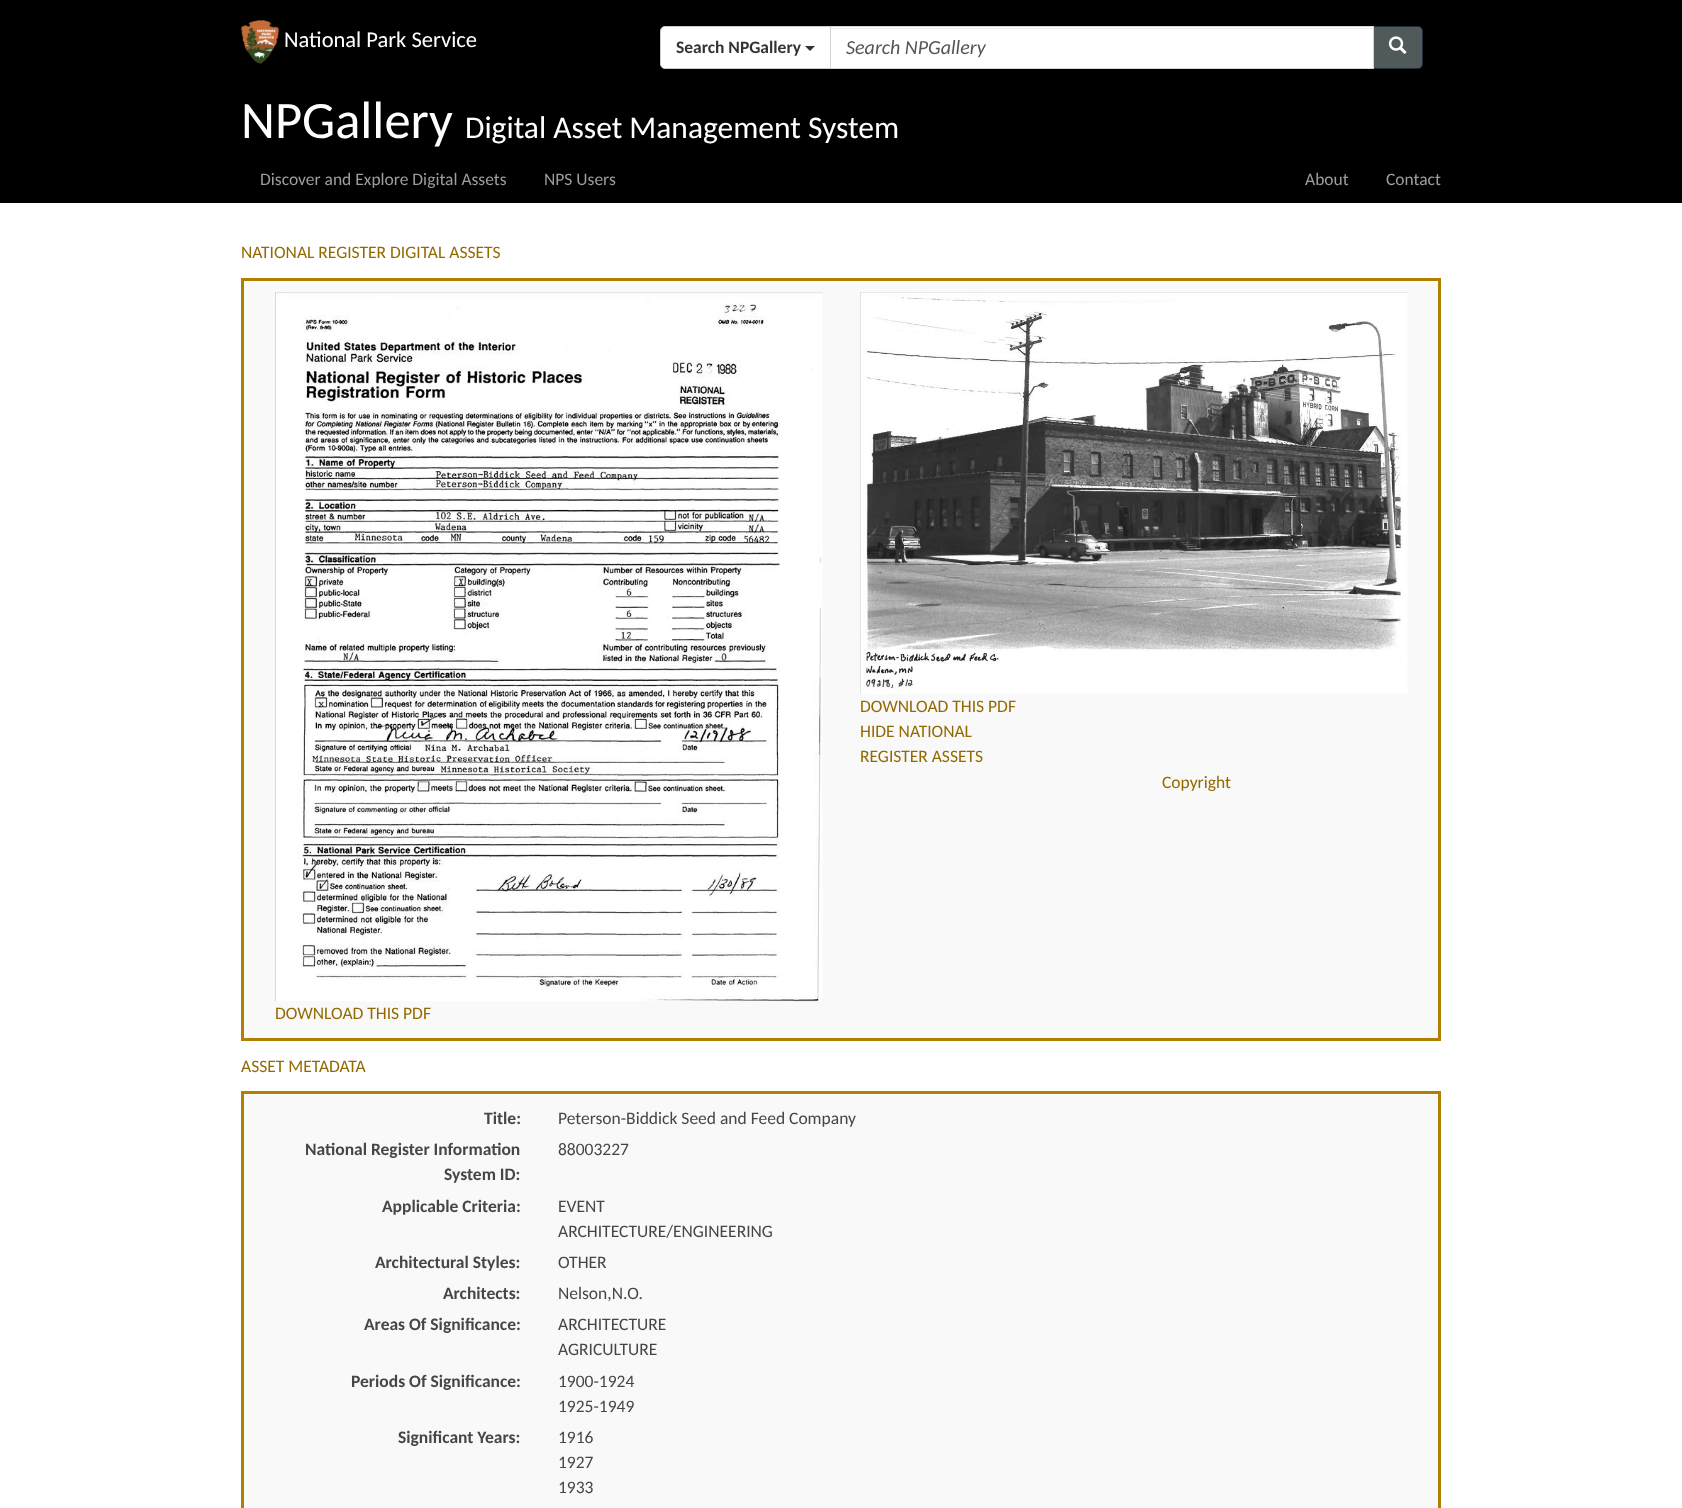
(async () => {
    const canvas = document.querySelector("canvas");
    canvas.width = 1682;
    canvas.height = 1508;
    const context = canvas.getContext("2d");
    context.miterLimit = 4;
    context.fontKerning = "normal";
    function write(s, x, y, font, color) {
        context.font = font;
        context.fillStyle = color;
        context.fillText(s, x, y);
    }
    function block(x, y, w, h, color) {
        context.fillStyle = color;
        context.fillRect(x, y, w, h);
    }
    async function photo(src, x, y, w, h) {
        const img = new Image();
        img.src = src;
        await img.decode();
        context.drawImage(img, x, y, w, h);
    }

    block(0, 0, 1682, 1508, "rgb(255, 255, 255)");
    block(0, 0, 1682, 203, "rgb(0, 0, 0)");
    await photo("media/1.png", 241, 20, 38, 44);
    write("National Park Service", 284, 47, "22.5px Carlito", "rgb(255, 255, 255)");
    context.beginPath();
    context.roundRect(660.5, 26.5, 170, 42, [4.5, 0, 0, 4.5]);
    context.fill();
    context.strokeStyle = "rgb(204, 204, 204)";
    context.stroke();
    write("Search NPGallery", 676, 53, "bold 17.5px Carlito", "rgb(51, 51, 51)");
    context.beginPath();
    context.moveTo(805, 46);
    context.lineTo(815, 46);
    context.lineTo(810, 51);
    context.closePath();
    context.fill();
    block(831, 27, 542, 41, "rgb(255, 255, 255)");
    block(831, 28, 542, 1, "rgb(236, 236, 236)");
    context.fillStyle = "rgb(81, 90, 90)";
    context.beginPath();
    context.roundRect(1373.5, 26.5, 49, 42, [0, 4.5, 4.5, 0]);
    context.fill();
    context.strokeStyle = "rgb(33, 47, 60)";
    context.stroke();
    context.strokeStyle = "rgb(217, 209, 215)";
    context.strokeRect(830.5, 26.5, 543, 42);
    write("Search NPGallery", 846, 54, "italic 20px Carlito", "rgb(85, 85, 85)");
    await photo("media/2.png", 1388, 36, 19, 18);
    write("NPGallery", 241, 138, "52.5px Carlito", "rgb(255, 255, 255)");
    write("Digital Asset Management System", 465, 138, "31.5px Carlito", "rgb(255, 255, 255)");
    write("Discover and Explore Digital Assets", 260, 185, "17.5px Carlito", "rgb(157, 157, 157)");
    write("NPS Users", 544, 185, "17.5px Carlito", "rgb(157, 157, 157)");
    write("About", 1305, 185, "17.5px Carlito", "rgb(157, 157, 157)");
    write("Contact", 1386, 185, "17.5px Carlito", "rgb(157, 157, 157)");
    write("NATIONAL REGISTER DIGITAL ASSETS", 241, 258, "17.5px Carlito", "rgb(147, 106, 0)");
    context.fillStyle = "rgb(249, 249, 249)";
    context.beginPath();
    context.rect(242.5, 279.5, 1197, 760);
    context.fill();
    context.strokeStyle = "rgb(178, 128, 0)";
    context.lineWidth = 3;
    context.stroke();
    await photo("media/3.png", 860, 292, 548, 402);
    write("DOWNLOAD THIS PDF", 860, 712, "17.5px Carlito", "rgb(147, 106, 0)");
    write("HIDE NATIONAL", 860, 737, "17.5px Carlito", "rgb(147, 106, 0)");
    write("REGISTER ASSETS", 860, 762, "17.5px Carlito", "rgb(147, 106, 0)");
    write("Copyright", 1162, 788, "17.5px Carlito", "rgb(147, 106, 0)");
    await photo("media/4.png", 275, 292, 548, 710);
    write("DOWNLOAD THIS PDF", 275, 1019, "17.5px Carlito", "rgb(147, 106, 0)");
    write("ASSET METADATA", 241, 1072, "17.5px Carlito", "rgb(147, 106, 0)");
    context.fillStyle = "rgb(249, 249, 249)";
    context.beginPath();
    context.rect(242.5, 1092.5, 1197, 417);
    context.fill();
    context.stroke();
    write("Title:", 484, 1124, "bold 17.5px Carlito", "rgb(70, 70, 70)");
    write("Peterson-Biddick Seed and Feed Company", 558, 1124, "17.5px Carlito", "rgb(70, 70, 70)");
    write("National Register Information", 305, 1155, "bold 17.5px Carlito", "rgb(70, 70, 70)");
    write("System ID:", 444, 1180, "bold 17.5px Carlito", "rgb(70, 70, 70)");
    write("88003227", 558, 1155, "17.5px Carlito", "rgb(70, 70, 70)");
    write("Applicable Criteria:", 382, 1212, "bold 17.5px Carlito", "rgb(70, 70, 70)");
    write("EVENT", 558, 1212, "17.5px Carlito", "rgb(70, 70, 70)");
    write("ARCHITECTURE/ENGINEERING", 558, 1237, "17.5px Carlito", "rgb(70, 70, 70)");
    write("Architectural Styles:", 375, 1268, "bold 17.5px Carlito", "rgb(70, 70, 70)");
    write("OTHER", 558, 1268, "17.5px Carlito", "rgb(70, 70, 70)");
    write("Architects:", 443, 1299, "bold 17.5px Carlito", "rgb(70, 70, 70)");
    write("Nelson,N.O.", 558, 1299, "17.5px Carlito", "rgb(70, 70, 70)");
    write("Areas Of Significance:", 364, 1330, "bold 17.5px Carlito", "rgb(70, 70, 70)");
    write("ARCHITECTURE", 558, 1330, "17.5px Carlito", "rgb(70, 70, 70)");
    write("AGRICULTURE", 558, 1355, "17.5px Carlito", "rgb(70, 70, 70)");
    write("Periods Of Significance:", 351, 1387, "bold 17.5px Carlito", "rgb(70, 70, 70)");
    write("1900-1924", 558, 1387, "17.5px Carlito", "rgb(70, 70, 70)");
    write("1925-1949", 558, 1412, "17.5px Carlito", "rgb(70, 70, 70)");
    write("Significant Years:", 398, 1443, "bold 17.5px Carlito", "rgb(70, 70, 70)");
    write("1916", 558, 1443, "17.5px Carlito", "rgb(70, 70, 70)");
    write("1927", 558, 1468, "17.5px Carlito", "rgb(70, 70, 70)");
    write("1933", 558, 1493, "17.5px Carlito", "rgb(70, 70, 70)");
})();
